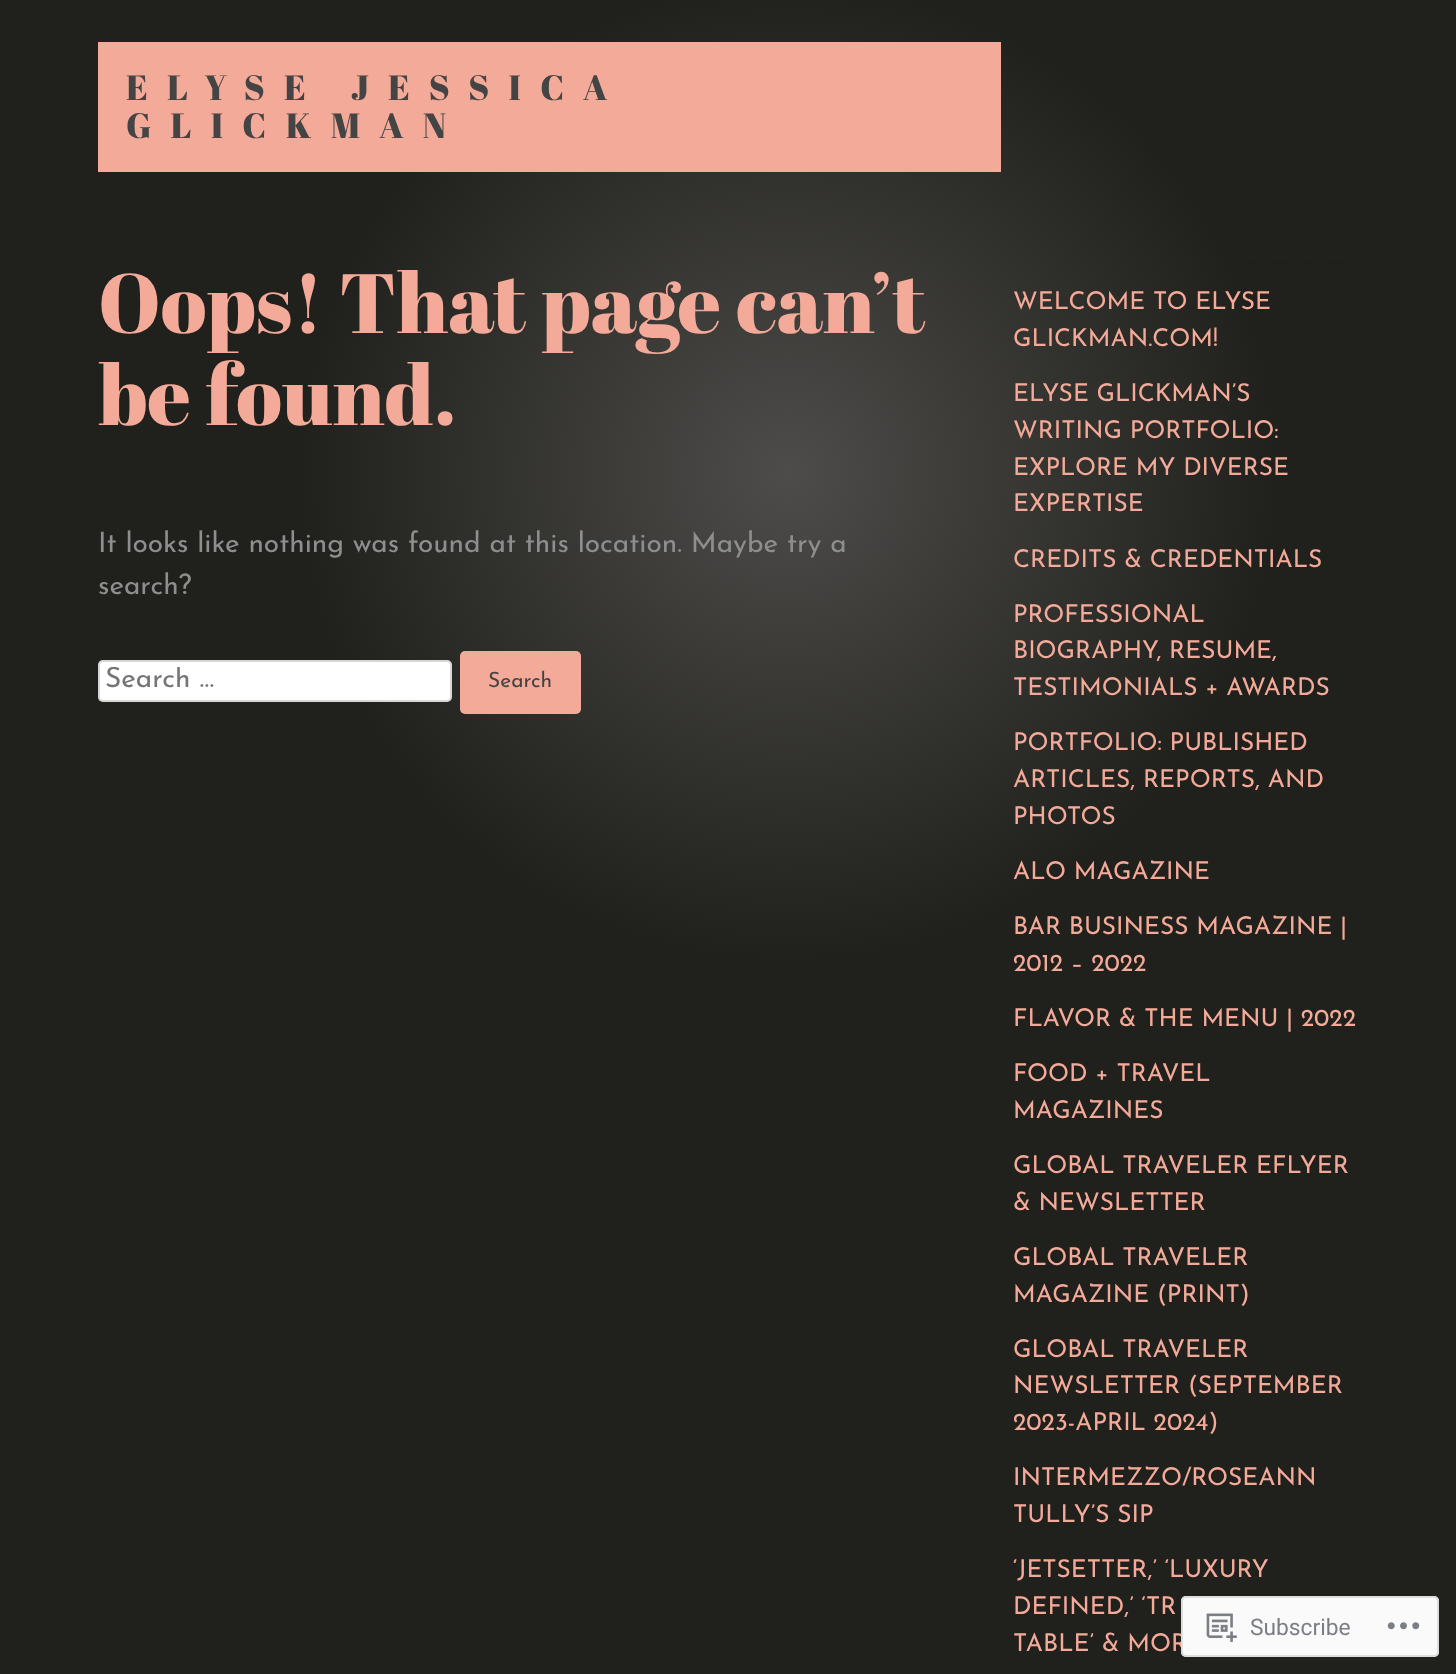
(async () => {
    const canvas = document.querySelector("canvas");
    canvas.width = 1456;
    canvas.height = 1674;
    const context = canvas.getContext("2d");
    context.miterLimit = 4;
    context.fontKerning = "normal";
    function write(s, x, y, font, color) {
        context.font = font;
        context.fillStyle = color;
        context.fillText(s, x, y);
    }
    function block(x, y, w, h, color) {
        context.fillStyle = color;
        context.fillRect(x, y, w, h);
    }
    function card(x, y, w, h, r, color) {
        context.fillStyle = color;
        context.beginPath();
        context.roundRect(x, y, w, h, r);
        context.fill();
    }
    async function photo(src, x, y, w, h) {
        const img = new Image();
        img.src = src;
        await img.decode();
        context.drawImage(img, x, y, w, h);
    }
    let gradient;

    block(0, 0, 1456, 1674, "rgb(255, 255, 255)");
    gradient = context.createRadialGradient(788, 473, 0, 788, 473, 490);
    gradient.addColorStop(0, "rgb(77, 76, 74)");
    gradient.addColorStop(1, "rgb(32, 32, 28)");
    context.fillStyle = gradient;
    context.fillRect(0, 0, 1456, 1674);
    block(98, 42, 903, 130, "rgb(244, 170, 153)");
    context.letterSpacing = "19.25px";
    write("ELYSE JESSICA", 126, 100, "35px Abril Fatface", "rgb(68, 68, 68)");
    write("GLICKMAN", 126, 138, "35px Abril Fatface", "rgb(68, 68, 68)");
    context.letterSpacing = "0px";
    write("Oops! That page can’t", 98, 333, "84px Abril Fatface", "rgb(244, 170, 153)");
    write("be found.", 98, 425, "84px Abril Fatface", "rgb(244, 170, 153)");
    write("It looks like nothing was found at this location. Maybe try a", 98, 552, "28px Josefin Sans", "rgb(142, 142, 142)");
    write("search?", 98, 594, "28px Josefin Sans", "rgb(142, 142, 142)");
    card(98, 660, 354, 42, 5, "rgb(255, 255, 255)");
    context.beginPath();
    context.roundRect(99, 661, 352, 40, 4);
    context.strokeStyle = "rgba(57, 57, 57, 0.2)";
    context.lineWidth = 2;
    context.stroke();
    context.save();
    context.beginPath();
    context.rect(105, 667, 313, 28);
    context.clip();
    write("Search …", 105, 687, "28px Josefin Sans", "rgb(117, 117, 117)");
    context.restore();
    card(460, 651, 121, 63, 5, "rgb(244, 170, 153)");
    write("Search", 488, 687, "21px Josefin Sans", "rgb(68, 68, 68)");
    context.save();
    context.beginPath();
    context.rect(999, 256, 359, 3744);
    context.clip();
    context.beginPath();
    context.moveTo(999, 256.5);
    context.lineTo(1358, 256.5);
    context.lineWidth = 1.8;
    context.setLineDash([1.75, 1.75]);
    context.stroke();
    context.restore();
    write("WELCOME TO ELYSE", 1013, 309, "24.5px Josefin Sans", "rgb(244, 170, 153)");
    write("GLICKMAN.COM!", 1013, 346, "24.5px Josefin Sans", "rgb(244, 170, 153)");
    write("ELYSE GLICKMAN’S", 1013, 401, "24.5px Josefin Sans", "rgb(244, 170, 153)");
    write("WRITING PORTFOLIO:", 1013, 438, "24.5px Josefin Sans", "rgb(244, 170, 153)");
    write("EXPLORE MY DIVERSE", 1013, 475, "24.5px Josefin Sans", "rgb(244, 170, 153)");
    write("EXPERTISE", 1013, 511, "24.5px Josefin Sans", "rgb(244, 170, 153)");
    write("CREDITS & CREDENTIALS", 1013, 567, "24.5px Josefin Sans", "rgb(244, 170, 153)");
    write("PROFESSIONAL", 1013, 622, "24.5px Josefin Sans", "rgb(244, 170, 153)");
    write("BIOGRAPHY, RESUME,", 1013, 658, "24.5px Josefin Sans", "rgb(244, 170, 153)");
    write("TESTIMONIALS + AWARDS", 1013, 695, "24.5px Josefin Sans", "rgb(244, 170, 153)");
    write("PORTFOLIO: PUBLISHED", 1013, 750, "24.5px Josefin Sans", "rgb(244, 170, 153)");
    write("ARTICLES, REPORTS, AND", 1013, 787, "24.5px Josefin Sans", "rgb(244, 170, 153)");
    write("PHOTOS", 1013, 824, "24.5px Josefin Sans", "rgb(244, 170, 153)");
    write("ALO MAGAZINE", 1013, 879, "24.5px Josefin Sans", "rgb(244, 170, 153)");
    write("BAR BUSINESS MAGAZINE |", 1013, 934, "24.5px Josefin Sans", "rgb(244, 170, 153)");
    write("2012 – 2022", 1013, 971, "24.5px Josefin Sans", "rgb(244, 170, 153)");
    write("FLAVOR & THE MENU | 2022", 1013, 1026, "24.5px Josefin Sans", "rgb(244, 170, 153)");
    write("FOOD + TRAVEL", 1013, 1081, "24.5px Josefin Sans", "rgb(244, 170, 153)");
    write("MAGAZINES", 1013, 1118, "24.5px Josefin Sans", "rgb(244, 170, 153)");
    write("GLOBAL TRAVELER EFLYER", 1013, 1173, "24.5px Josefin Sans", "rgb(244, 170, 153)");
    write("& NEWSLETTER", 1013, 1210, "24.5px Josefin Sans", "rgb(244, 170, 153)");
    write("GLOBAL TRAVELER", 1013, 1265, "24.5px Josefin Sans", "rgb(244, 170, 153)");
    write("MAGAZINE (PRINT)", 1013, 1302, "24.5px Josefin Sans", "rgb(244, 170, 153)");
    write("GLOBAL TRAVELER", 1013, 1357, "24.5px Josefin Sans", "rgb(244, 170, 153)");
    write("NEWSLETTER (SEPTEMBER", 1013, 1393, "24.5px Josefin Sans", "rgb(244, 170, 153)");
    write("2023-APRIL 2024)", 1013, 1430, "24.5px Josefin Sans", "rgb(244, 170, 153)");
    write("INTERMEZZO/ROSEANN", 1013, 1485, "24.5px Josefin Sans", "rgb(244, 170, 153)");
    write("TULLY’S SIP", 1013, 1522, "24.5px Josefin Sans", "rgb(244, 170, 153)");
    write("‘JETSETTER,’ ‘LUXURY", 1013, 1577, "24.5px Josefin Sans", "rgb(244, 170, 153)");
    write("DEFINED,’ ‘TR", 1013, 1614, "24.5px Josefin Sans", "rgb(244, 170, 153)");
    write("TABLE’ & MOR", 1013, 1651, "24.5px Josefin Sans", "rgb(244, 170, 153)");
    card(1181, 1596, 258, 61, 5, "rgba(255, 255, 255, 0.98)");
    context.beginPath();
    context.roundRect(1182, 1597, 256, 59, 4);
    context.strokeStyle = "rgba(220, 220, 222, 0.98)";
    context.stroke();
    await photo("media/1.png", 1206, 1613, 31, 29);
    write("Subscribe", 1250, 1635, "22.75px Roboto", "rgb(123, 127, 132)");
    await photo("media/2.png", 1387, 1622, 33, 8);
})();
